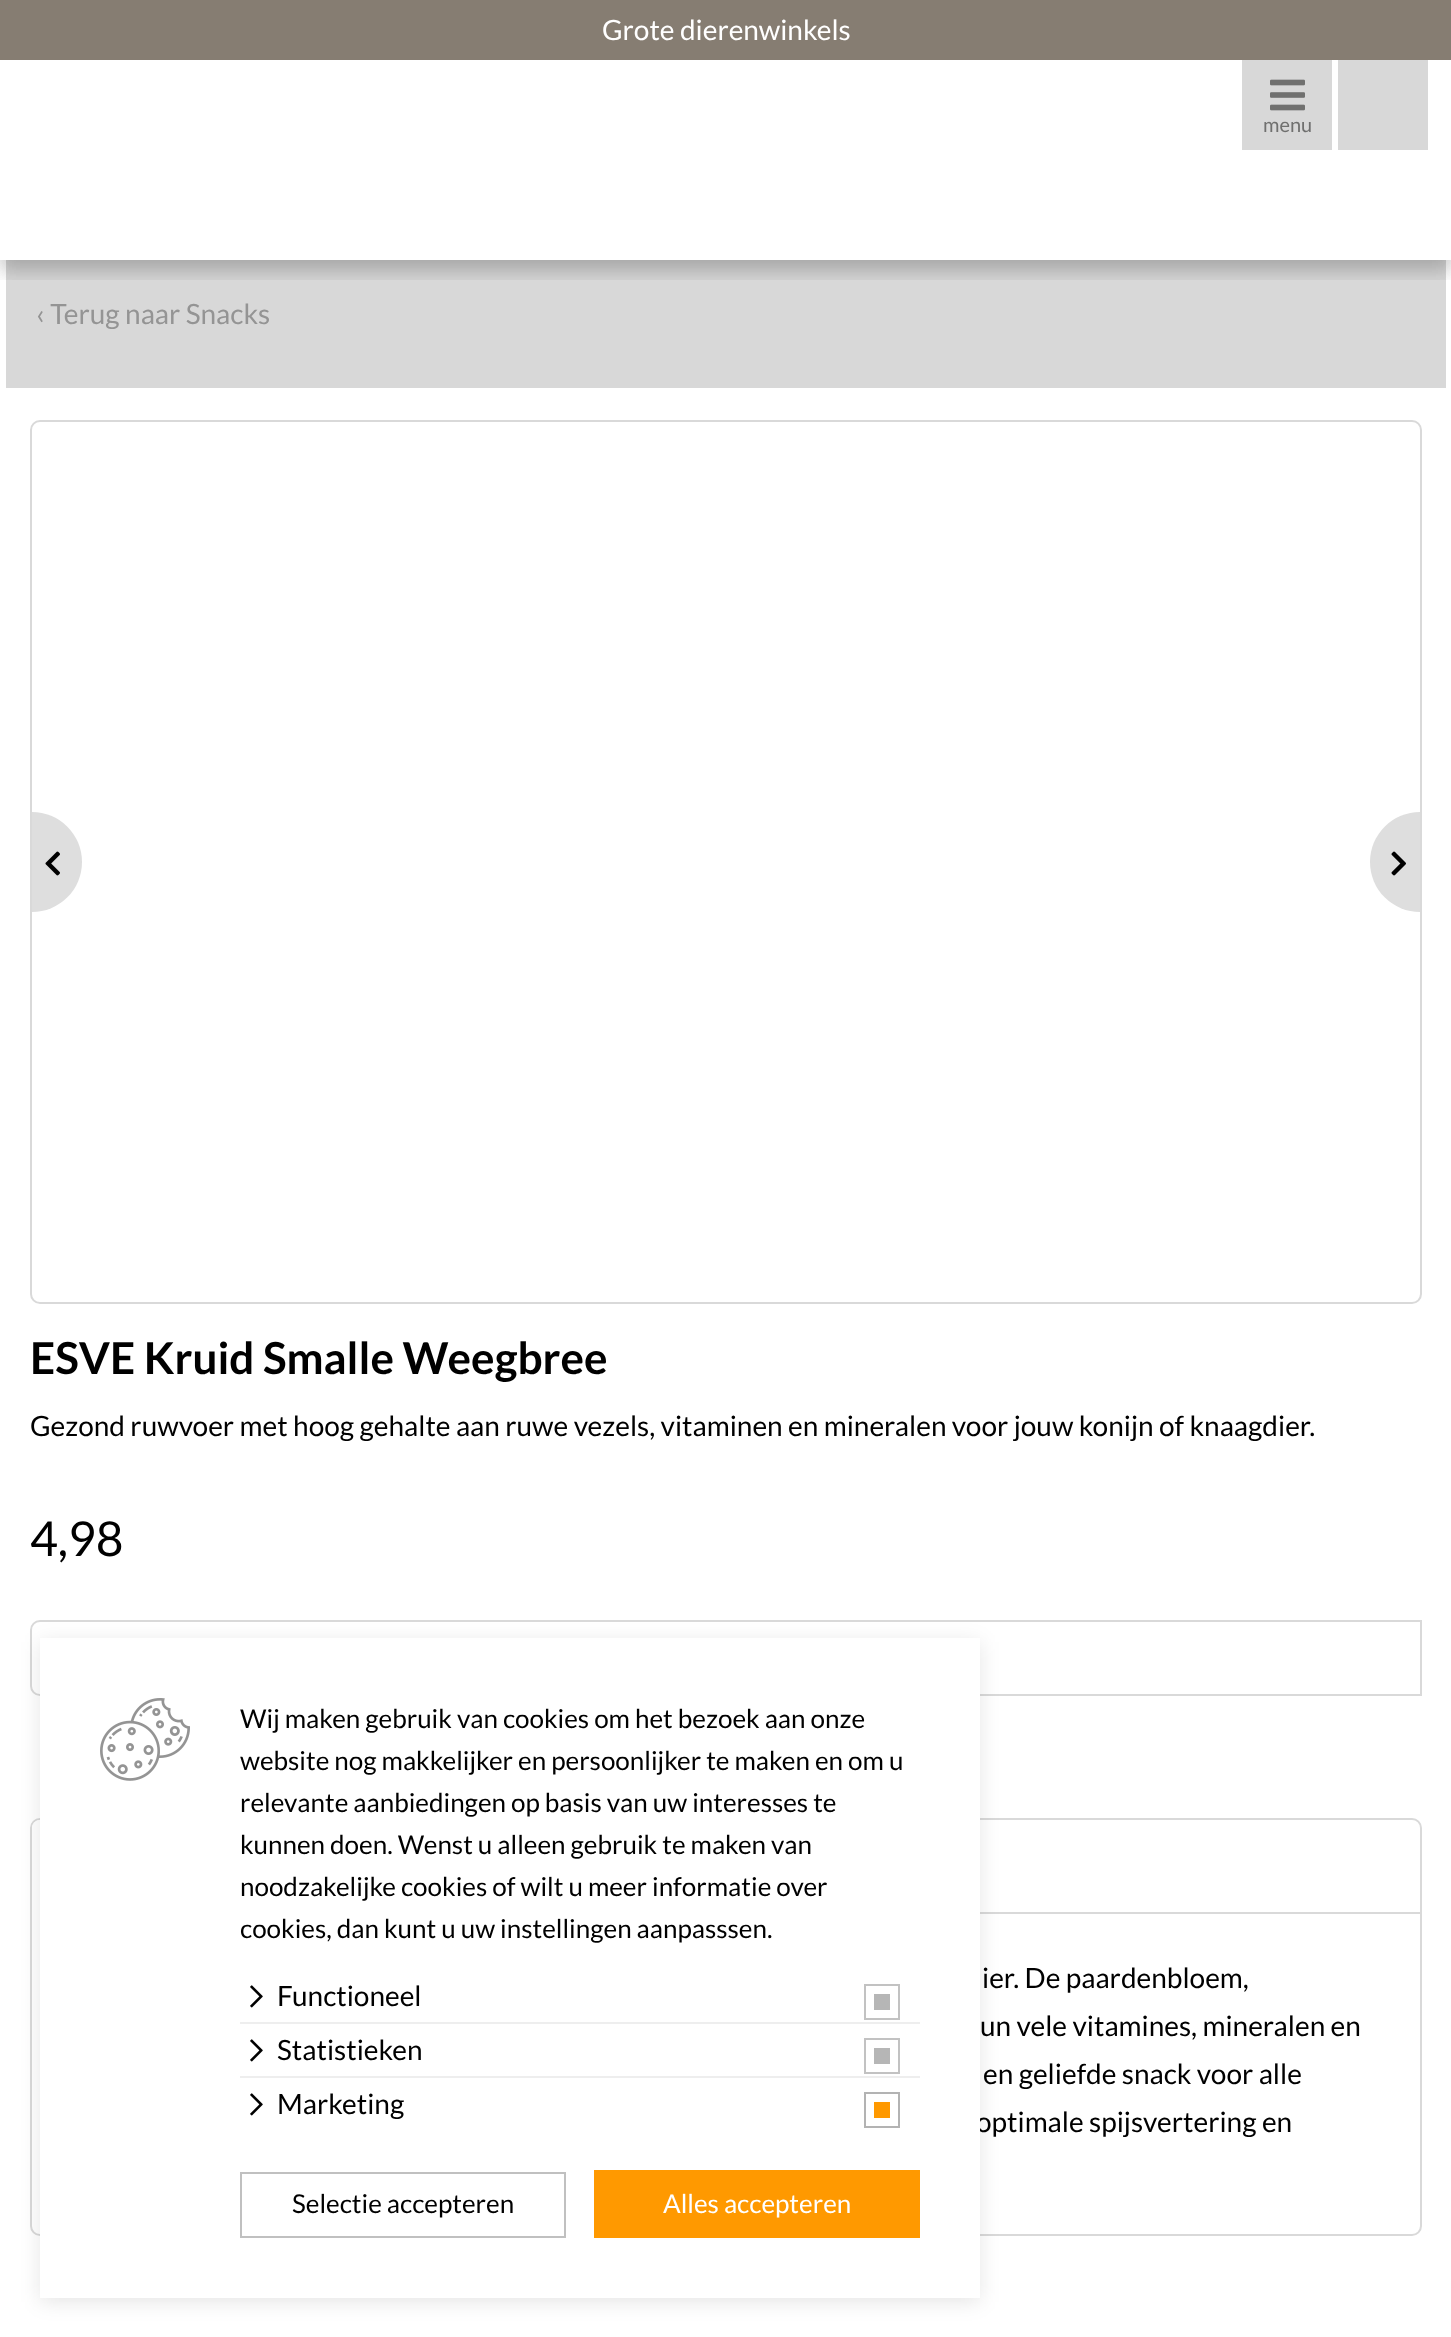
(async () => {
    const canvas = document.querySelector("canvas");
    canvas.width = 1451;
    canvas.height = 2337;
    const context = canvas.getContext("2d");
    context.miterLimit = 4;
    context.fontKerning = "normal";
    function write(s, x, y, font, color) {
        context.font = font;
        context.fillStyle = color;
        context.fillText(s, x, y);
    }
    function block(x, y, w, h, color) {
        context.fillStyle = color;
        context.fillRect(x, y, w, h);
    }
    async function photo(src, x, y, w, h) {
        const img = new Image();
        img.src = src;
        await img.decode();
        context.drawImage(img, x, y, w, h);
    }

    block(0, 0, 1451, 2337, "rgb(255, 255, 255)");
    block(6, 260, 1440, 128, "rgb(216, 216, 216)");
    context.save();
    context.beginPath();
    context.rect(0, 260, 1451, 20);
    context.clip();
    context.fillStyle = "rgba(0, 0, 0, 0.12)";
    context.filter = "blur(10px)";
    context.beginPath();
    context.rect(0, 10, 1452, 260);
    context.fill();
    context.filter = "none";
    context.filter = "blur(10px)";
    context.beginPath();
    context.rect(0, 10, 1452, 260);
    context.fill();
    context.filter = "none";
    context.restore();
    block(0, 0, 1451, 60, "rgb(134, 125, 114)");
    write("Grote dierenwinkels", 602, 40, "28px Lato", "rgb(255, 255, 255)");
    block(1242, 60, 90, 90, "rgb(216, 216, 216)");
    await photo("media/1.png", 1270, 79, 35, 32);
    write("menu", 1263, 132, "20px Lato", "rgb(112, 112, 111)");
    block(1338, 60, 90, 90, "rgb(216, 216, 216)");
    write("‹ Terug naar Snacks", 36, 324, "28px Lato", "rgb(148, 148, 148)");
    context.beginPath();
    context.roundRect(31, 421, 1390, 882, 9);
    context.strokeStyle = "rgb(217, 217, 217)";
    context.lineWidth = 2;
    context.stroke();
    context.fillStyle = "rgb(222, 222, 222)";
    context.beginPath();
    context.roundRect(32, 812, 50, 100, [0, 50, 50, 0]);
    context.fill();
    await photo("media/2.png", 45, 851, 15, 25);
    context.beginPath();
    context.roundRect(1370, 812, 50, 100, [50, 0, 0, 50]);
    context.fill();
    await photo("media/3.png", 1391, 851, 15, 25);
    write("ESVE Kruid Smalle Weegbree", 30, 1374, "bold 44px Lato", "rgb(0, 0, 0)");
    write("Gezond ruwvoer met hoog gehalte aan ruwe vezels, vitaminen en mineralen voor jouw konijn of knaagdier.", 30, 1436, "28px Lato", "rgb(0, 0, 0)");
    write("4,98", 30, 1556, "48px Lato", "rgb(0, 0, 0)");
    context.beginPath();
    context.roundRect(31, 1621, 1390, 74, [9, 0, 0, 9]);
    context.stroke();
    context.beginPath();
    context.roundRect(31, 1819, 1390, 416, 9);
    context.stroke();
    block(980, 1912, 440, 2, "rgb(217, 217, 217)");
    context.fillStyle = "rgb(255, 255, 255)";
    context.beginPath();
    context.roundRect(32, 1820, 228, 92, [8, 0, 0, 0]);
    context.fill();
    write("ier. De paardenbloem,", 982, 1988, "28px Lato", "rgb(0, 0, 0)");
    write("un vele vitamines, mineralen en", 980, 2036, "28px Lato", "rgb(0, 0, 0)");
    write("en geliefde snack voor alle", 983, 2084, "28px Lato", "rgb(0, 0, 0)");
    write("optimale spijsvertering en", 976, 2132, "28px Lato", "rgb(0, 0, 0)");
    context.fillStyle = "rgba(0, 0, 0, 0.1)";
    context.filter = "blur(10px)";
    context.beginPath();
    context.rect(40, 1642, 940, 660);
    context.fill();
    context.filter = "none";
    block(40, 1638, 940, 660, "rgb(255, 255, 255)");
    await photo("media/4.png", 100, 1698, 90, 83);
    write("Wij maken gebruik van cookies om het bezoek aan onze", 240, 1728, "26px Lato", "rgb(0, 0, 0)");
    write("website nog makkelijker en persoonlijker te maken en om u", 240, 1770, "26px Lato", "rgb(0, 0, 0)");
    write("relevante aanbiedingen op basis van uw interesses te", 240, 1812, "26px Lato", "rgb(0, 0, 0)");
    write("kunnen doen. Wenst u alleen gebruik te maken van", 240, 1854, "26px Lato", "rgb(0, 0, 0)");
    write("noodzakelijke cookies of wilt u meer informatie over", 240, 1896, "26px Lato", "rgb(0, 0, 0)");
    write("cookies, dan kunt u uw instellingen aanpasssen.", 240, 1938, "26px Lato", "rgb(0, 0, 0)");
    await photo("media/5.png", 250, 1985, 13, 23);
    write("Functioneel", 277, 2006, "28px Lato", "rgb(0, 0, 0)");
    context.strokeStyle = "rgb(194, 194, 194)";
    context.strokeRect(865, 1985, 34, 34);
    block(874, 1994, 16, 16, "rgb(182, 182, 182)");
    block(240, 2022, 680, 2, "rgb(238, 238, 238)");
    await photo("media/5.png", 250, 2039, 13, 23);
    write("Statistieken", 277, 2060, "28px Lato", "rgb(0, 0, 0)");
    context.strokeRect(865, 2039, 34, 34);
    block(874, 2048, 16, 16, "rgb(182, 182, 182)");
    block(240, 2076, 680, 2, "rgb(238, 238, 238)");
    await photo("media/5.png", 250, 2093, 13, 23);
    write("Marketing", 277, 2114, "28px Lato", "rgb(0, 0, 0)");
    context.strokeStyle = "rgb(179, 179, 179)";
    context.strokeRect(865, 2093, 34, 34);
    block(874, 2102, 16, 16, "rgb(255, 153, 0)");
    context.strokeStyle = "rgb(192, 192, 192)";
    context.strokeRect(241, 2173, 324, 64);
    write("Selectie accepteren", 292, 2213, "26px Lato", "rgb(0, 0, 0)");
    block(594, 2170, 326, 68, "rgb(255, 153, 0)");
    write("Alles accepteren", 663, 2213, "26px Lato", "rgb(255, 255, 255)");
})();
